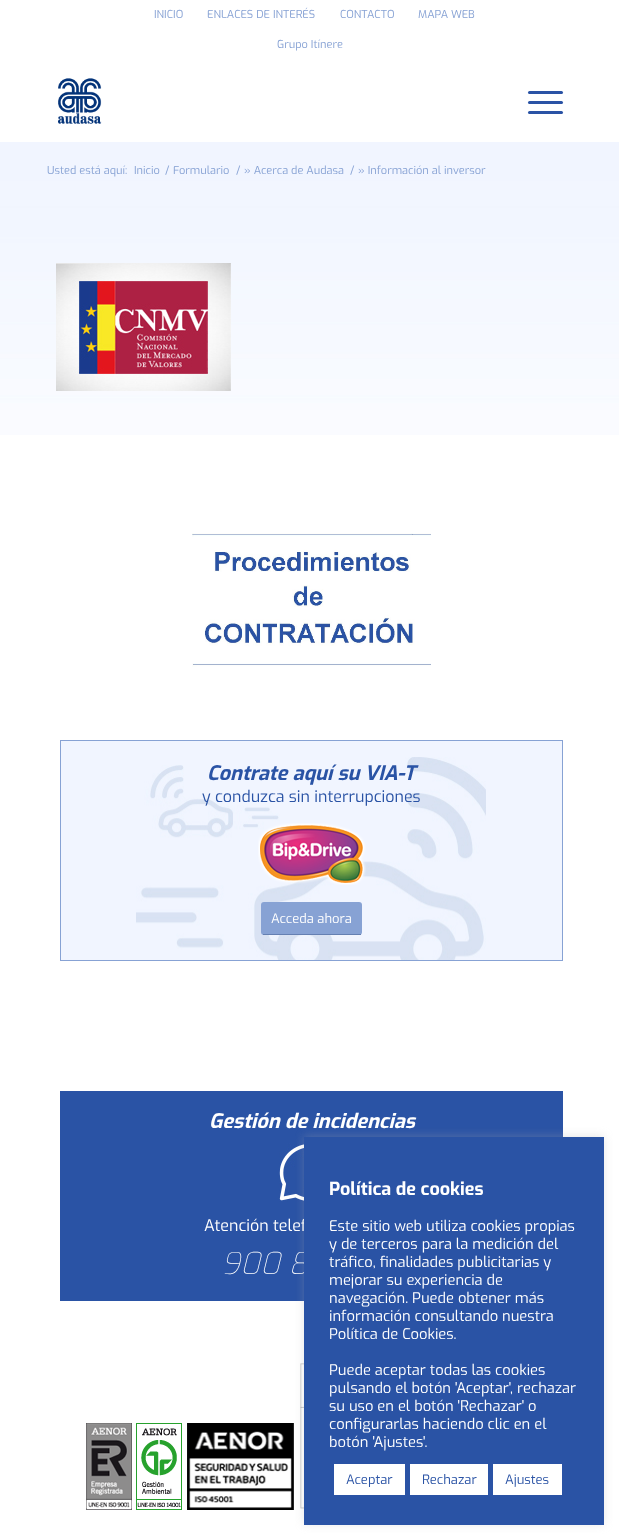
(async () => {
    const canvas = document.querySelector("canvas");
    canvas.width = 619;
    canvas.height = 1540;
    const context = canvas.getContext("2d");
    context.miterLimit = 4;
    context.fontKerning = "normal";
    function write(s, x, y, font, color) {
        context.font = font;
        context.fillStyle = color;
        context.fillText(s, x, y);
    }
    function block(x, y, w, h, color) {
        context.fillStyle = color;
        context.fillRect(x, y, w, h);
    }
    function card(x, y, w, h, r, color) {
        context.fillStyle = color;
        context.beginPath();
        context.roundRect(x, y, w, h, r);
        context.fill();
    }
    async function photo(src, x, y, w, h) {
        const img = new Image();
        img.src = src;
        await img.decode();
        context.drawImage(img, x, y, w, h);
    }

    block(0, 0, 619, 1540, "rgb(255, 255, 255)");
    write("INICIO", 154, 18, "11px Exo", "rgb(135, 162, 212)");
    write("ENLACES DE INTERÉS", 207, 18, "11px Exo", "rgb(135, 162, 212)");
    write("CONTACTO", 340, 18, "11px Exo", "rgb(135, 162, 212)");
    write("MAPA WEB", 418, 18, "11px Exo", "rgb(135, 162, 212)");
    write("Grupo Itínere", 277, 48, "11px Exo", "rgb(135, 162, 212)");
    await photo("media/1.png", 58, 78, 44, 46);
    card(528, 101, 35, 3, 1.5, "rgb(42, 83, 165)");
    card(528, 91, 35, 3, 1.5, "rgb(42, 83, 165)");
    card(528, 111, 35, 3, 1.5, "rgb(42, 83, 165)");
    await photo("media/2.png", 0, 142, 619, 293);
    write("Usted está aquí:", 47, 174, "11px Exo", "rgb(135, 162, 212)");
    write("Inicio", 134, 174, "11px Exo", "rgb(135, 162, 212)");
    write("/", 165, 174, "11px Exo", "rgb(135, 162, 212)");
    write("Formulario", 173, 174, "11px Exo", "rgb(135, 162, 212)");
    write("/", 236, 174, "11px Exo", "rgb(135, 162, 212)");
    write("» Acerca de Audasa", 244, 174, "11px Exo", "rgb(135, 162, 212)");
    write("/", 350, 174, "11px Exo", "rgb(135, 162, 212)");
    write("» Información al inversor", 358, 174, "11px Exo", "rgb(135, 162, 212)");
    await photo("media/3.png", 56, 263, 175, 128);
    await photo("media/4.png", 192, 533, 239, 134);
    block(61, 741, 501, 219, "rgb(241, 245, 255)");
    await photo("media/5.png", 136, 757, 350, 203);
    context.strokeStyle = "rgb(135, 162, 212)";
    context.strokeRect(60.5, 740.5, 502, 220);
    write("Contrate aquí su VIA-T", 207, 780, "italic bold 20px Exo", "rgb(42, 83, 165)");
    write("y conduzca sin interrupciones", 202, 802, "16px Exo", "rgb(42, 83, 165)");
    await photo("media/6.png", 258, 823, 108, 62);
    card(261, 902, 101, 33, 3, "rgb(135, 162, 212)");
    block(263, 934, 98, 1, "rgb(101, 128, 178)");
    write("Acceda ahora", 271, 923, "13px Exo", "rgb(255, 255, 255)");
    block(60, 1091, 503, 210, "rgb(42, 83, 165)");
    write("Gestión de incidencias", 209, 1128, "italic bold 20px Exo", "rgb(255, 255, 255)");
    await photo("media/7.png", 279, 1143, 25, 59);
    write("Atención telef", 204, 1231, "16px Exo", "rgb(255, 255, 255)");
    write("900 8", 221, 1274, "italic 100 30px Exo", "rgb(255, 255, 255)");
    await photo("media/8.png", 86, 1423, 46, 87);
    await photo("media/9.png", 136, 1423, 46, 87);
    await photo("media/10.png", 187, 1423, 107, 87);
    await photo("media/11.png", 300, 1363, 4, 146);
    context.fillStyle = "rgba(172, 171, 171, 0.3)";
    context.filter = "blur(5px)";
    context.beginPath();
    context.rect(304, 1136, 300, 388);
    context.fill();
    context.filter = "none";
    block(304, 1137, 300, 388, "rgb(42, 83, 165)");
    write("Política de cookies", 329, 1195, "bold 18px Exo", "rgb(255, 255, 255)");
    write("Este sitio web utiliza cookies propias", 329, 1231, "14.7px Exo", "rgb(255, 255, 255)");
    write("y de terceros para la medición del", 329, 1249, "14.7px Exo", "rgb(255, 255, 255)");
    write("tráfico, finalidades publicitarias y", 329, 1267, "14.7px Exo", "rgb(255, 255, 255)");
    write("mejorar su experiencia de", 329, 1285, "14.7px Exo", "rgb(255, 255, 255)");
    write("navegación. Puede obtener más", 329, 1303, "14.7px Exo", "rgb(255, 255, 255)");
    write("información consultando nuestra", 329, 1321, "14.7px Exo", "rgb(255, 255, 255)");
    write("Política de Cookies.", 329, 1339, "14.7px Exo", "rgb(255, 255, 255)");
    write("Puede aceptar todas las cookies", 329, 1375, "14.7px Exo", "rgb(255, 255, 255)");
    write("pulsando el botón 'Aceptar', rechazar", 329, 1393, "14.7px Exo", "rgb(255, 255, 255)");
    write("su uso en el botón 'Rechazar' o", 329, 1411, "14.7px Exo", "rgb(255, 255, 255)");
    write("configurarlas haciendo clic en el", 329, 1429, "14.7px Exo", "rgb(255, 255, 255)");
    write("botón 'Ajustes'.", 329, 1447, "14.7px Exo", "rgb(255, 255, 255)");
    block(334, 1464, 71, 31, "rgb(255, 255, 255)");
    write("Aceptar", 346, 1484, "13px Exo", "rgb(42, 83, 165)");
    block(410, 1464, 78, 31, "rgb(255, 255, 255)");
    write("Rechazar", 422, 1484, "13px Exo", "rgb(42, 83, 165)");
    block(493, 1464, 69, 31, "rgb(255, 255, 255)");
    write("Ajustes", 505, 1484, "13px Exo", "rgb(42, 83, 165)");
})();
